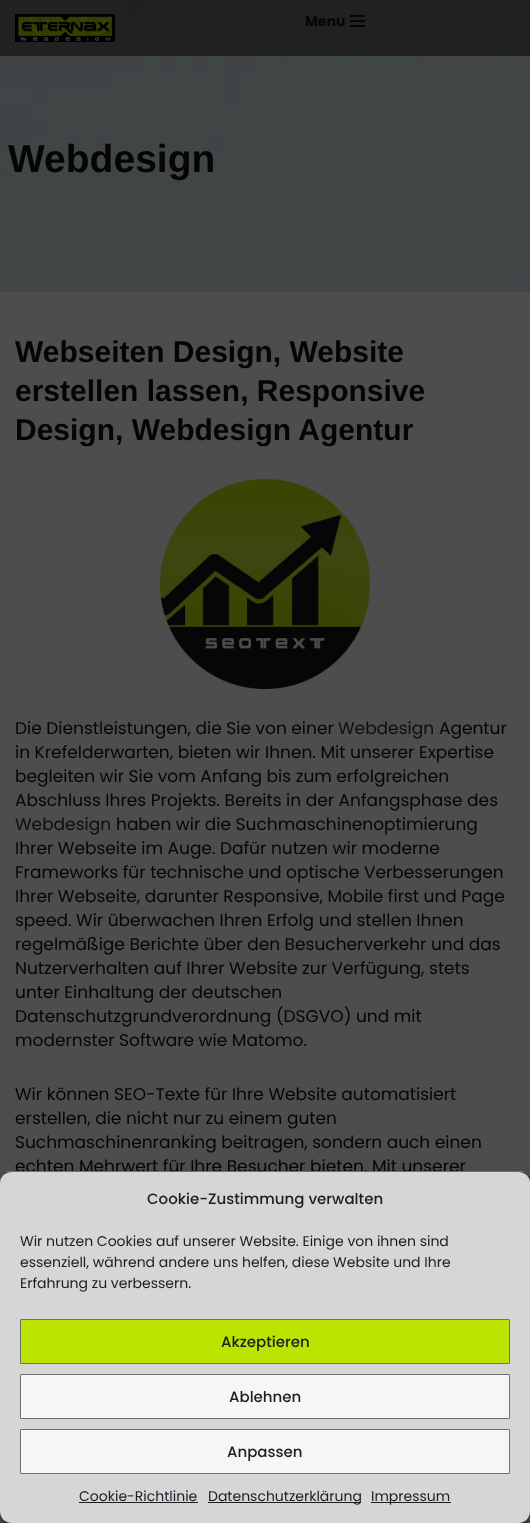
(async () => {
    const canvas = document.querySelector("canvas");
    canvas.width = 530;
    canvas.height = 1523;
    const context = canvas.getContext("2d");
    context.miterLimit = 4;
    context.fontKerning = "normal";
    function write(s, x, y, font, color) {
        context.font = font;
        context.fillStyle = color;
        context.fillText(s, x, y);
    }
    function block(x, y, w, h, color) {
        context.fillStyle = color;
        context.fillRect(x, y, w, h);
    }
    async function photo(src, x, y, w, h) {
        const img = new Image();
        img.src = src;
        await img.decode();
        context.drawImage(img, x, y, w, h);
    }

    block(0, 0, 530, 1523, "rgb(77, 77, 77)");
    await photo("media/1.png", 0, 0, 530, 56);
    await photo("media/2.png", 15, 14, 100, 28);
    write("Menu", 305, 26, "bold 14px Poppins", "rgb(5, 5, 5)");
    block(350, 15, 15, 2, "rgb(6, 6, 6)");
    block(350, 20, 15, 2, "rgb(6, 6, 6)");
    block(350, 25, 15, 2, "rgb(6, 6, 6)");
    await photo("media/3.png", 0, 56, 530, 236);
    write("Webdesign", 8, 172, "bold 39px Liberation Sans", "rgb(5, 5, 5)");
    write("Webseiten Design, Website", 15, 362, "bold 30px Liberation Sans", "rgb(5, 5, 5)");
    write("erstellen lassen, Responsive", 15, 401, "bold 30px Liberation Sans", "rgb(5, 5, 5)");
    write("Design, Webdesign Agentur", 15, 440, "bold 30px Liberation Sans", "rgb(5, 5, 5)");
    await photo("media/4.png", 160, 479, 210, 210);
    write("Die Dienstleistungen, die Sie von einer", 15, 734, "17px Poppins", "rgb(5, 5, 5)");
    write("Webdesign", 338, 734, "17px Poppins", "rgb(13, 13, 13)");
    write("Agentur", 439, 734, "17px Poppins", "rgb(5, 5, 5)");
    write("in Krefelderwarten, bieten wir Ihnen. Mit unserer Expertise", 15, 758, "17px Poppins", "rgb(5, 5, 5)");
    write("begleiten wir Sie vom Anfang bis zum erfolgreichen", 15, 782, "17px Poppins", "rgb(5, 5, 5)");
    write("Abschluss Ihres Projekts. Bereits in der Anfangsphase des", 15, 806, "17px Poppins", "rgb(5, 5, 5)");
    write("Webdesign", 15, 830, "17px Poppins", "rgb(13, 13, 13)");
    write("haben wir die Suchmaschinenoptimierung", 116, 830, "17px Poppins", "rgb(5, 5, 5)");
    write("Ihrer Webseite im Auge. Dafür nutzen wir moderne", 15, 854, "17px Poppins", "rgb(5, 5, 5)");
    write("Frameworks für technische und optische Verbesserungen", 15, 878, "17px Poppins", "rgb(5, 5, 5)");
    write("Ihrer Webseite, darunter Responsive, Mobile first und Page", 15, 902, "17px Poppins", "rgb(5, 5, 5)");
    write("speed. Wir überwachen Ihren Erfolg und stellen Ihnen", 15, 926, "17px Poppins", "rgb(5, 5, 5)");
    write("regelmäßige Berichte über den Besucherverkehr und das", 15, 950, "17px Poppins", "rgb(5, 5, 5)");
    write("Nutzerverhalten auf Ihrer Website zur Verfügung, stets", 15, 974, "17px Poppins", "rgb(5, 5, 5)");
    write("unter Einhaltung der deutschen", 15, 998, "17px Poppins", "rgb(5, 5, 5)");
    write("Datenschutzgrundverordnung (DSGVO) und mit", 15, 1022, "17px Poppins", "rgb(5, 5, 5)");
    write("modernster Software wie Matomo.", 15, 1046, "17px Poppins", "rgb(5, 5, 5)");
    write("Wir können SEO-Texte für Ihre Website automatisiert", 15, 1100, "17px Poppins", "rgb(5, 5, 5)");
    write("erstellen, die nicht nur zu einem guten", 15, 1124, "17px Poppins", "rgb(5, 5, 5)");
    write("Suchmaschinenranking beitragen, sondern auch einen", 15, 1148, "17px Poppins", "rgb(5, 5, 5)");
    write("echten Mehrwert für Ihre Besucher bieten. Mit unserer", 15, 1172, "17px Poppins", "rgb(5, 5, 5)");
    context.fillStyle = "rgba(0, 0, 0, 0.23)";
    context.filter = "blur(3px)";
    context.beginPath();
    context.roundRect(0, 1177, 530, 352, 12);
    context.fill();
    context.filter = "none";
    context.fillStyle = "rgba(0, 0, 0, 0.19)";
    context.filter = "blur(10px)";
    context.beginPath();
    context.roundRect(0, 1181, 530, 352, 12);
    context.fill();
    context.filter = "none";
    context.fillStyle = "rgb(214, 214, 214)";
    context.beginPath();
    context.moveTo(12, 1172);
    context.lineTo(518, 1172);
    context.bezierCurveTo(525, 1172, 530, 1177, 530, 1183);
    context.lineTo(530, 1511);
    context.bezierCurveTo(530, 1518, 525, 1523, 518, 1523);
    context.lineTo(12, 1523);
    context.bezierCurveTo(5, 1523, 0, 1518, 0, 1511);
    context.lineTo(0, 1183);
    context.bezierCurveTo(0, 1177, 5, 1172, 12, 1172);
    context.closePath();
    context.fill();
    block(6, 1171, 518, 1, "rgb(111, 111, 111)");
    write("Cookie-Zustimmung verwalten", 147, 1204, "500 15px Poppins", "rgb(25, 30, 35)");
    write("Wir nutzen Cookies auf unserer Website. Einige von ihnen sind", 20, 1246, "14px Poppins", "rgb(25, 30, 35)");
    write("essenziell, während andere uns helfen, diese Website und Ihre", 20, 1267, "14px Poppins", "rgb(25, 30, 35)");
    write("Erfahrung zu verbessern.", 20, 1288, "14px Poppins", "rgb(25, 30, 35)");
    context.fillStyle = "rgb(187, 228, 0)";
    context.beginPath();
    context.roundRect(20.5, 1319.5, 489, 44, 0.5);
    context.fill();
    context.strokeStyle = "rgb(111, 111, 111)";
    context.stroke();
    write("Akzeptieren", 221, 1347, "500 15px Poppins", "rgb(31, 31, 31)");
    context.fillStyle = "rgb(246, 246, 246)";
    context.beginPath();
    context.roundRect(20.5, 1374.5, 489, 44, 0.5);
    context.fill();
    context.stroke();
    write("Ablehnen", 229, 1402, "500 15px Poppins", "rgb(31, 31, 31)");
    context.fillStyle = "rgb(246, 246, 246)";
    context.beginPath();
    context.roundRect(20.5, 1429.5, 489, 44, 0.5);
    context.fill();
    context.stroke();
    write("Anpassen", 227, 1457, "500 15px Poppins", "rgb(31, 31, 31)");
    write("Cookie-Richtlinie", 79, 1501, "14px Poppins", "rgb(25, 30, 35)");
    block(79, 1502, 119, 1, "rgb(25, 30, 35)");
    block(208, 1502, 153, 1, "rgb(25, 30, 35)");
    write("Datenschutzerklärung", 208, 1501, "14px Poppins", "rgb(25, 30, 35)");
    block(371, 1502, 80, 1, "rgb(25, 30, 35)");
    write("Impressum", 371, 1501, "14px Poppins", "rgb(25, 30, 35)");
})();
